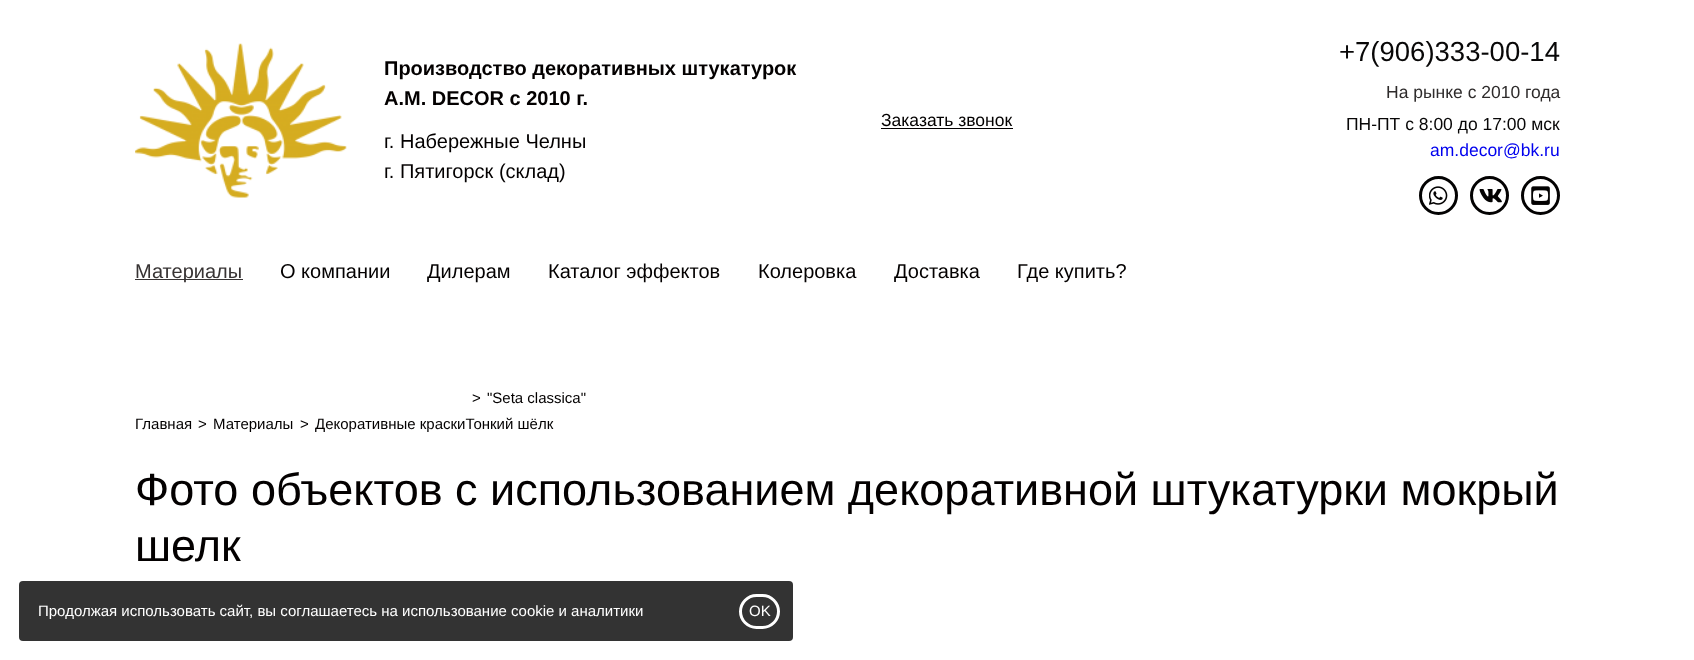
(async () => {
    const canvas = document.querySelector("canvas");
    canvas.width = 1694;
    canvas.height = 660;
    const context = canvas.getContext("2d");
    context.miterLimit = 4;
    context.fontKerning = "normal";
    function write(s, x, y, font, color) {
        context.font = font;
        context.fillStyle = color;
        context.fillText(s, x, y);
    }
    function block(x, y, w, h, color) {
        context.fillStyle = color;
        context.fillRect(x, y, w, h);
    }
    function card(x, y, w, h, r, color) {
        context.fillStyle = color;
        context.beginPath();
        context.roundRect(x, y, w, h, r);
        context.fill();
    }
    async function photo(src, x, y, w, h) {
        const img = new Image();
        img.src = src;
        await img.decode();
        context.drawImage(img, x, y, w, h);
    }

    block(0, 0, 1694, 660, "rgb(255, 255, 255)");
    await photo("media/1.png", 135, 43, 212, 155);
    write("Производство декоративных штукатурок", 384, 75, "bold 20px Liberation Sans", "rgb(3, 0, 0)");
    write("A.M. DECOR с 2010 г.", 384, 105, "bold 20px Liberation Sans", "rgb(3, 0, 0)");
    write("г. Набережные Челны", 384, 148, "20px Liberation Sans", "rgb(3, 0, 0)");
    write("г. Пятигорск (склад)", 384, 178, "20px Liberation Sans", "rgb(3, 0, 0)");
    write("Заказать звонок", 881, 126, "17.5px Liberation Sans", "rgb(3, 0, 0)");
    block(881, 128, 132, 1, "rgb(3, 0, 0)");
    write("+7(906)333-00-14", 1339, 61, "27.5px Liberation Sans", "rgb(8, 7, 7)");
    write("На рынке с 2010 года", 1386, 98, "17.5px Liberation Sans", "rgb(46, 43, 43)");
    write("ПН-ПТ с 8:00 до 17:00 мск", 1346, 130, "17.5px Liberation Sans", "rgb(8, 7, 7)");
    write("am.decor@bk.ru", 1430, 156, "17.5px Liberation Sans", "rgb(0, 0, 238)");
    context.beginPath();
    context.arc(1438.5, 195.5, 18, 0, Math.PI * 2);
    context.strokeStyle = "rgb(3, 2, 2)";
    context.lineWidth = 3;
    context.stroke();
    await photo("media/2.png", 1429, 186, 19, 19);
    context.beginPath();
    context.arc(1489.5, 195.5, 18, 0, Math.PI * 2);
    context.stroke();
    await photo("media/3.png", 1479, 189, 23, 14);
    context.beginPath();
    context.arc(1540.5, 195.5, 18, 0, Math.PI * 2);
    context.stroke();
    await photo("media/4.png", 1531, 186, 19, 19);
    block(135, 279, 108, 1, "rgb(55, 51, 51)");
    write("Материалы", 135, 278, "20px Liberation Sans", "rgb(55, 51, 51)");
    write("О компании", 280, 278, "20px Liberation Sans", "rgb(3, 0, 0)");
    write("Дилерам", 427, 278, "20px Liberation Sans", "rgb(3, 0, 0)");
    write("Каталог эффектов", 548, 278, "20px Liberation Sans", "rgb(3, 0, 0)");
    write("Колеровка", 758, 278, "20px Liberation Sans", "rgb(3, 0, 0)");
    write("Доставка", 894, 278, "20px Liberation Sans", "rgb(3, 0, 0)");
    write("Где купить?", 1017, 278, "20px Liberation Sans", "rgb(3, 0, 0)");
    write(">", 472, 403, "15px Liberation Sans", "rgb(3, 0, 0)");
    write("\"Seta classica\"", 487, 403, "15px Liberation Sans", "rgb(3, 0, 0)");
    write("Главная", 135, 429, "15px Liberation Sans", "rgb(3, 0, 0)");
    write(">", 198, 429, "15px Liberation Sans", "rgb(3, 0, 0)");
    write("Материалы", 213, 429, "15px Liberation Sans", "rgb(3, 0, 0)");
    write(">", 300, 429, "15px Liberation Sans", "rgb(3, 0, 0)");
    write("Декоративные краскиТонкий шёлк", 315, 429, "15px Liberation Sans", "rgb(3, 0, 0)");
    write("Фото объектов с использованием декоративной штукатурки мокрый", 135, 505, "45px Liberation Sans", "rgb(3, 0, 0)");
    write("шелк", 135, 561, "45px Liberation Sans", "rgb(3, 0, 0)");
    card(19, 581, 774, 60, 4, "rgb(51, 51, 51)");
    write("Продолжая использовать сайт, вы соглашаетесь на использование cookie и аналитики", 38, 616, "15px Liberation Sans", "rgb(255, 255, 255)");
    context.beginPath();
    context.roundRect(740.5, 595.5, 38, 32, 16);
    context.strokeStyle = "rgb(255, 255, 255)";
    context.stroke();
    write("OK", 749, 616, "15px Liberation Sans", "rgb(255, 255, 255)");
})();
